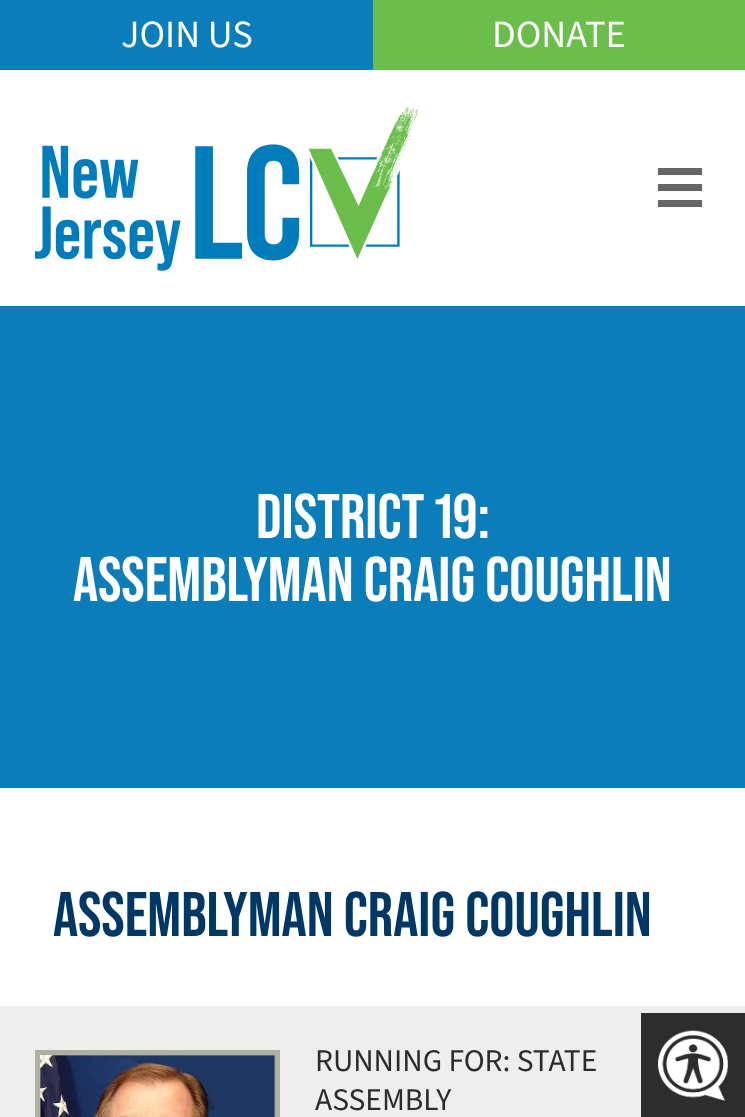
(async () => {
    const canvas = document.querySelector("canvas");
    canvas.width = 745;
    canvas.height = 1117;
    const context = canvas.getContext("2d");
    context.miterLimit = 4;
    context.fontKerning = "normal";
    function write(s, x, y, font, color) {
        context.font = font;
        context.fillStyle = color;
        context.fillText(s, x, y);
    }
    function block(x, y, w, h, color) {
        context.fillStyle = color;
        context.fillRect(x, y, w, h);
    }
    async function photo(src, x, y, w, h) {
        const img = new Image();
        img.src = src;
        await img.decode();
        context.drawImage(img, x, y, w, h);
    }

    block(0, 0, 745, 1117, "rgb(255, 255, 255)");
    block(0, 0, 373, 70, "rgb(11, 125, 187)");
    write("JOIN US", 121, 47, "38.5px 'Source Sans 3'", "rgb(255, 255, 255)");
    block(373, 0, 372, 70, "rgb(107, 190, 76)");
    write("DONATE", 492, 47, "38.5px 'Source Sans 3'", "rgb(255, 255, 255)");
    await photo("media/1.png", 35, 105, 385, 166);
    block(658, 184, 44, 7, "rgb(102, 102, 102)");
    block(658, 168, 44, 7, "rgb(102, 102, 102)");
    block(658, 200, 44, 7, "rgb(102, 102, 102)");
    block(0, 306, 745, 482, "rgb(11, 125, 187)");
    write("DISTRICT 19:", 256, 538, "bold 63px Bebas Neue", "rgb(255, 255, 255)");
    write("ASSEMBLYMAN CRAIG COUGHLIN", 73, 601, "bold 63px Bebas Neue", "rgb(255, 255, 255)");
    write("ASSEMBLYMAN CRAIG COUGHLIN", 53, 936, "bold 63px Bebas Neue", "rgb(0, 55, 101)");
    block(0, 1006, 745, 111, "rgb(238, 238, 238)");
    context.strokeStyle = "rgb(176, 176, 160)";
    context.lineWidth = 5;
    context.strokeRect(37.5, 1052.5, 240, 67);
    await photo("media/2.png", 40, 1055, 235, 62);
    write("RUNNING FOR: STATE", 315, 1071, "31.5px 'Source Sans 3'", "rgb(43, 43, 43)");
    write("ASSEMBLY", 315, 1110, "31.5px 'Source Sans 3'", "rgb(43, 43, 43)");
    block(641, 1013, 104, 104, "rgb(46, 45, 45)");
    await photo("media/3.png", 658, 1030, 70, 71);
})();
